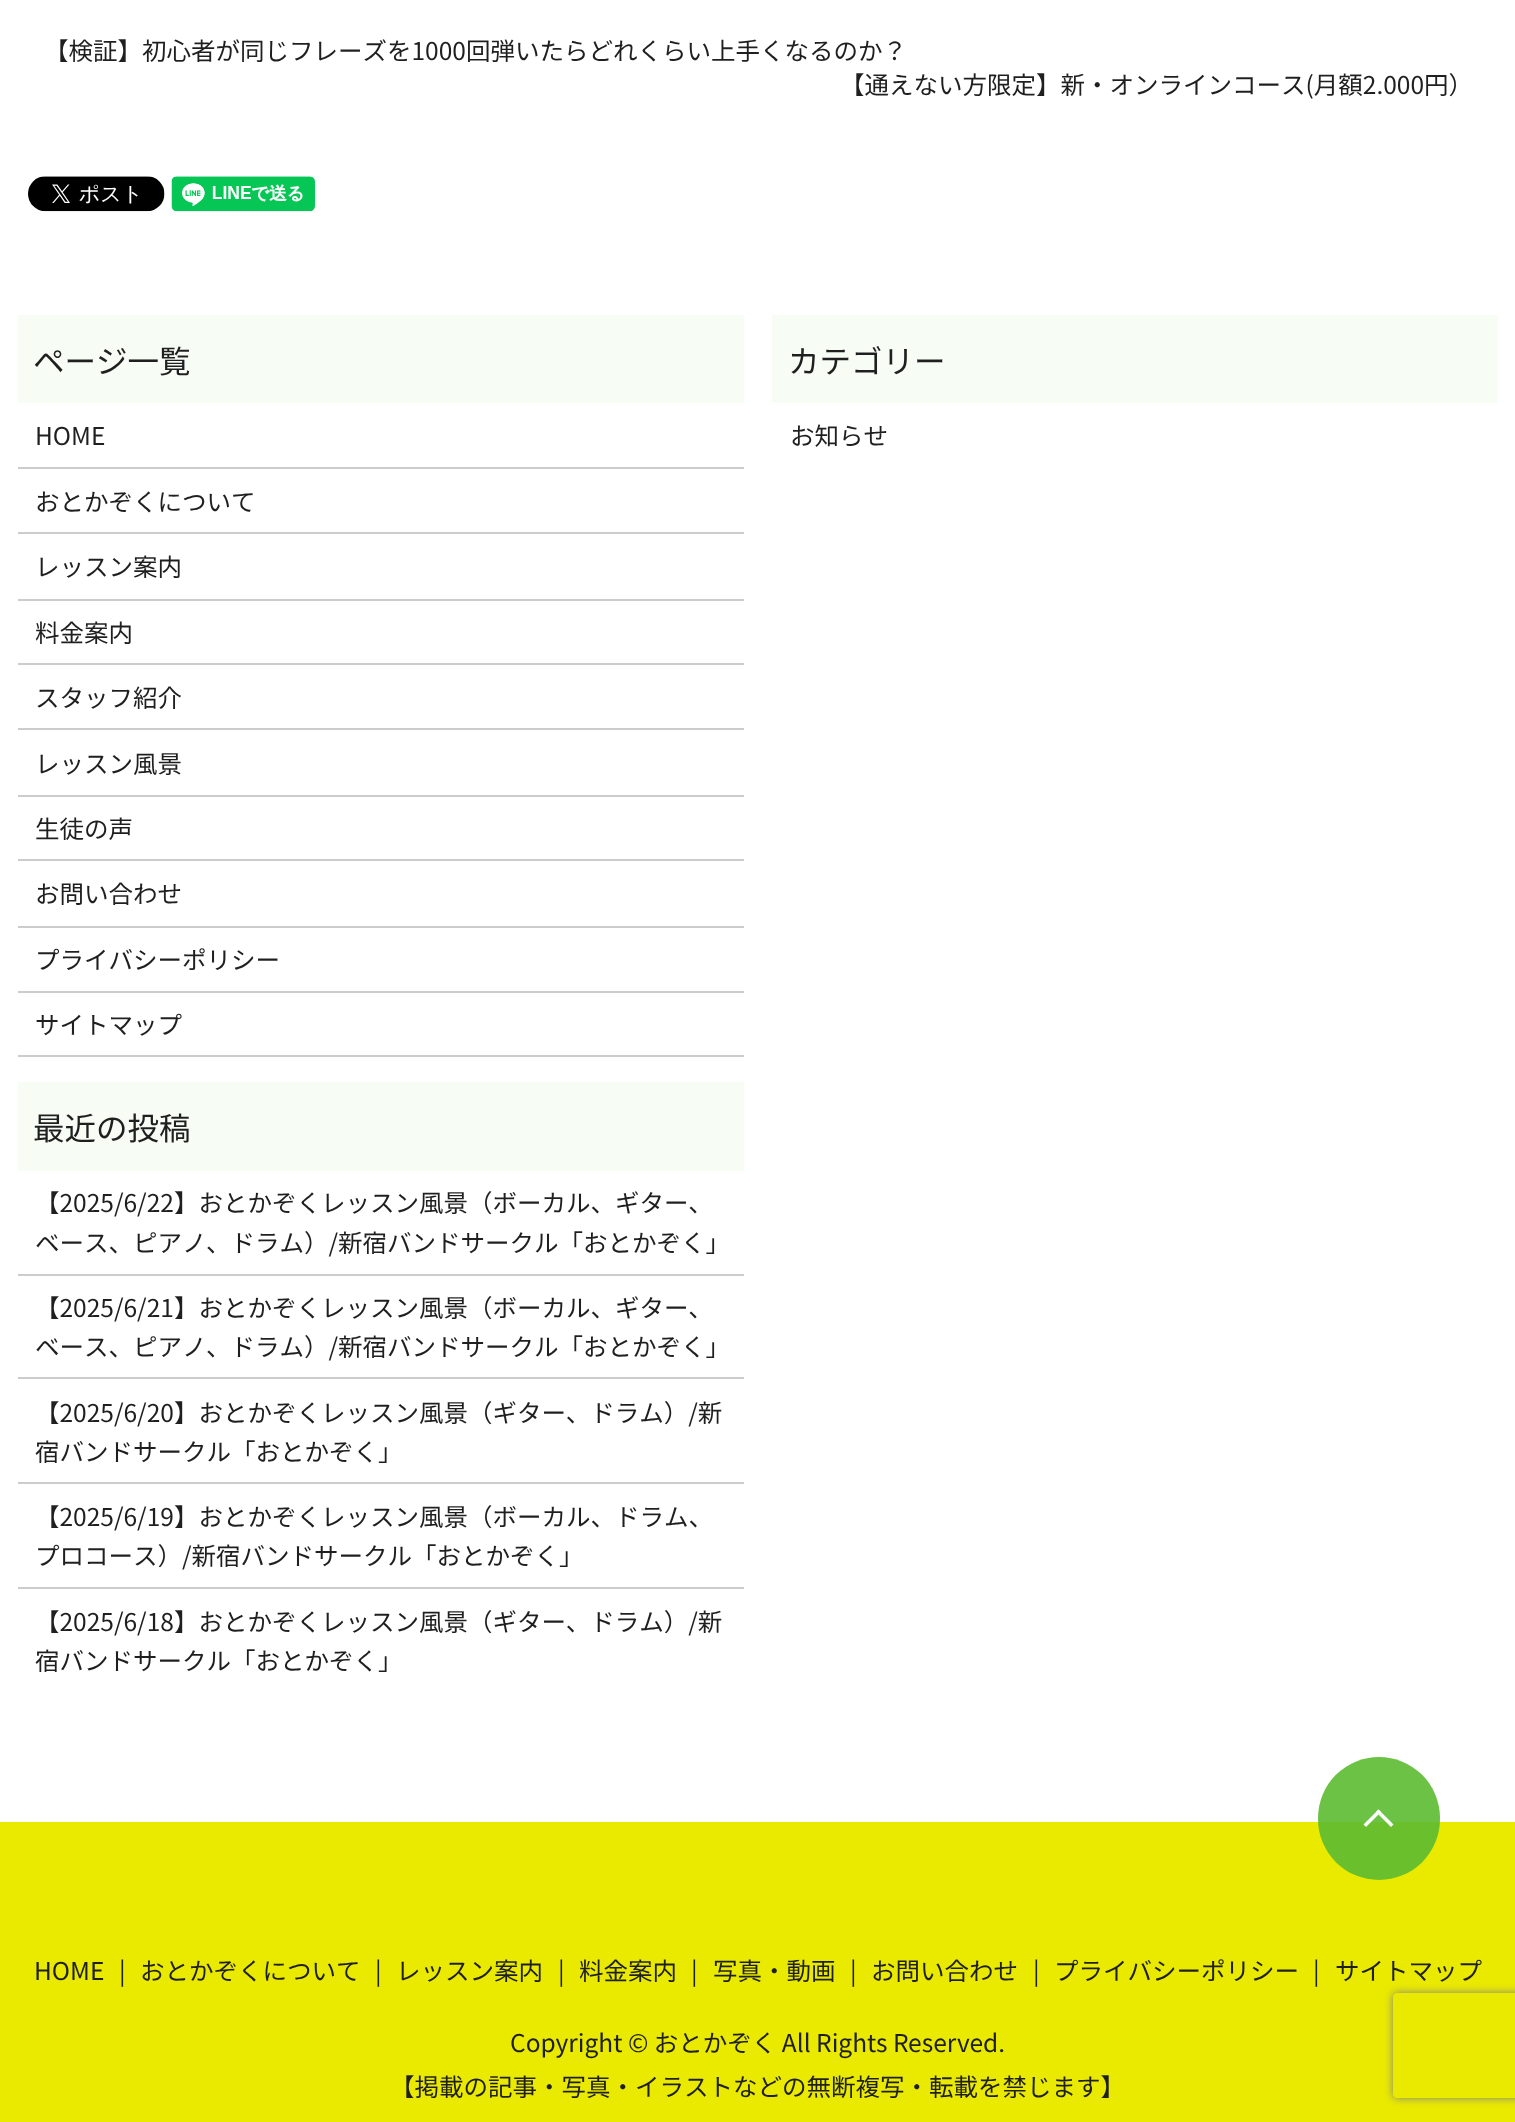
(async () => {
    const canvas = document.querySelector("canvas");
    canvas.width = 1515;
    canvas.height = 2122;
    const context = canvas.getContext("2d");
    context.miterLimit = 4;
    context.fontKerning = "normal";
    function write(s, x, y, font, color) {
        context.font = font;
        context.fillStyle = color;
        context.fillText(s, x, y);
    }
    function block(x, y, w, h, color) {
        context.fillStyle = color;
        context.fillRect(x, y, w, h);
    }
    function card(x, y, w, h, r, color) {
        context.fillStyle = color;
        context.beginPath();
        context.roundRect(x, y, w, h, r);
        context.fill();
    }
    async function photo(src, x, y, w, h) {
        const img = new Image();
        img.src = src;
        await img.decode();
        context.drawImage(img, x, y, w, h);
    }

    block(0, 0, 1515, 2122, "rgb(255, 255, 255)");
    write("【検証】初心者が同じフレーズを1000回弾いたらどれくらい上手くなるのか？", 44, 60, "24.5px Noto Sans JP", "rgb(31, 31, 31)");
    write("【通えない方限定】新・オンラインコース(月額2.000円）", 840, 94, "24.5px Noto Sans JP", "rgb(31, 31, 31)");
    await photo("media/1.png", 28, 176, 137, 36);
    await photo("media/2.png", 171, 176, 144, 36);
    block(18, 315, 726, 88, "rgb(247, 252, 245)");
    write("ページ一覧", 33, 373, "31.5px Noto Sans JP", "rgb(31, 31, 31)");
    block(18, 467, 726, 2, "rgb(204, 204, 204)");
    write("HOME", 35, 445, "24.5px Noto Sans JP", "rgb(31, 31, 31)");
    block(18, 532, 726, 2, "rgb(204, 204, 204)");
    write("おとかぞくについて", 35, 511, "24.5px Noto Sans JP", "rgb(31, 31, 31)");
    block(18, 599, 726, 2, "rgb(204, 204, 204)");
    write("レッスン案内", 35, 576, "24.5px Noto Sans JP", "rgb(31, 31, 31)");
    block(18, 663, 726, 2, "rgb(204, 204, 204)");
    write("料金案内", 35, 642, "24.5px Noto Sans JP", "rgb(31, 31, 31)");
    block(18, 728, 726, 2, "rgb(204, 204, 204)");
    write("スタッフ紹介", 35, 707, "24.5px Noto Sans JP", "rgb(31, 31, 31)");
    block(18, 795, 726, 2, "rgb(204, 204, 204)");
    write("レッスン風景", 35, 773, "24.5px Noto Sans JP", "rgb(31, 31, 31)");
    block(18, 859, 726, 2, "rgb(204, 204, 204)");
    write("生徒の声", 35, 838, "24.5px Noto Sans JP", "rgb(31, 31, 31)");
    block(18, 926, 726, 2, "rgb(204, 204, 204)");
    write("お問い合わせ", 35, 903, "24.5px Noto Sans JP", "rgb(31, 31, 31)");
    block(18, 991, 726, 2, "rgb(204, 204, 204)");
    write("プライバシーポリシー", 35, 969, "24.5px Noto Sans JP", "rgb(31, 31, 31)");
    block(18, 1055, 726, 2, "rgb(204, 204, 204)");
    write("サイトマップ", 35, 1034, "24.5px Noto Sans JP", "rgb(31, 31, 31)");
    block(772, 315, 726, 88, "rgb(247, 252, 245)");
    write("カテゴリー", 788, 373, "31.5px Noto Sans JP", "rgb(31, 31, 31)");
    write("お知らせ", 790, 445, "24.5px Noto Sans JP", "rgb(31, 31, 31)");
    block(18, 1082, 726, 89, "rgb(247, 252, 245)");
    write("最近の投稿", 33, 1140, "31.5px Noto Sans JP", "rgb(31, 31, 31)");
    block(18, 1274, 726, 2, "rgb(204, 204, 204)");
    write("【2025/6/22】おとかぞくレッスン風景（ボーカル、ギター、", 35, 1212, "24.5px Noto Sans JP", "rgb(31, 31, 31)");
    write("ベース、ピアノ、ドラム）/新宿バンドサークル「おとかぞく」", 35, 1252, "24.5px Noto Sans JP", "rgb(31, 31, 31)");
    block(18, 1377, 726, 2, "rgb(204, 204, 204)");
    write("【2025/6/21】おとかぞくレッスン風景（ボーカル、ギター、", 35, 1317, "24.5px Noto Sans JP", "rgb(31, 31, 31)");
    write("ベース、ピアノ、ドラム）/新宿バンドサークル「おとかぞく」", 35, 1356, "24.5px Noto Sans JP", "rgb(31, 31, 31)");
    block(18, 1482, 726, 2, "rgb(204, 204, 204)");
    write("【2025/6/20】おとかぞくレッスン風景（ギター、ドラム）/新", 35, 1422, "24.5px Noto Sans JP", "rgb(31, 31, 31)");
    write("宿バンドサークル「おとかぞく」", 35, 1461, "24.5px Noto Sans JP", "rgb(31, 31, 31)");
    block(18, 1587, 726, 2, "rgb(204, 204, 204)");
    write("【2025/6/19】おとかぞくレッスン風景（ボーカル、ドラム、", 35, 1526, "24.5px Noto Sans JP", "rgb(31, 31, 31)");
    write("プロコース）/新宿バンドサークル「おとかぞく」", 35, 1565, "24.5px Noto Sans JP", "rgb(31, 31, 31)");
    write("【2025/6/18】おとかぞくレッスン風景（ギター、ドラム）/新", 35, 1631, "24.5px Noto Sans JP", "rgb(31, 31, 31)");
    write("宿バンドサークル「おとかぞく」", 35, 1670, "24.5px Noto Sans JP", "rgb(31, 31, 31)");
    block(0, 1822, 1515, 300, "rgb(234, 234, 0)");
    card(1318, 1757, 122, 123, 61, "rgba(91, 187, 49, 0.9)");
    context.fillStyle = "rgb(255, 255, 255)";
    context.beginPath();
    context.moveTo(1378.5, 1809.5);
    context.lineTo(1393.5, 1824.5);
    context.lineTo(1391, 1827);
    context.lineTo(1376, 1812);
    context.closePath();
    context.fill();
    context.beginPath();
    context.moveTo(1378.5, 1809.5);
    context.lineTo(1381, 1812);
    context.lineTo(1366, 1827);
    context.lineTo(1363.5, 1824.5);
    context.closePath();
    context.fill();
    write("HOME", 34, 1980, "24.5px Noto Sans JP", "rgb(31, 31, 31)");
    write("|", 119, 1980, "24.5px Noto Sans JP", "rgb(31, 31, 31)");
    write("おとかぞくについて", 140, 1980, "24.5px Noto Sans JP", "rgb(31, 31, 31)");
    write("|", 375, 1980, "24.5px Noto Sans JP", "rgb(31, 31, 31)");
    write("レッスン案内", 396, 1980, "24.5px Noto Sans JP", "rgb(31, 31, 31)");
    write("|", 558, 1980, "24.5px Noto Sans JP", "rgb(31, 31, 31)");
    write("料金案内", 579, 1980, "24.5px Noto Sans JP", "rgb(31, 31, 31)");
    write("|", 691, 1980, "24.5px Noto Sans JP", "rgb(31, 31, 31)");
    write("写真・動画", 713, 1980, "24.5px Noto Sans JP", "rgb(31, 31, 31)");
    write("|", 850, 1980, "24.5px Noto Sans JP", "rgb(31, 31, 31)");
    write("お問い合わせ", 871, 1980, "24.5px Noto Sans JP", "rgb(31, 31, 31)");
    write("|", 1033, 1980, "24.5px Noto Sans JP", "rgb(31, 31, 31)");
    write("プライバシーポリシー", 1054, 1980, "24.5px Noto Sans JP", "rgb(31, 31, 31)");
    write("|", 1313, 1980, "24.5px Noto Sans JP", "rgb(31, 31, 31)");
    write("サイトマップ", 1335, 1980, "24.5px Noto Sans JP", "rgb(31, 31, 31)");
    write("Copyright © おとかぞく All Rights Reserved.", 510, 2052, "24.5px Noto Sans JP", "rgb(31, 31, 31)");
    write("【掲載の記事・写真・イラストなどの無断複写・転載を禁じます】", 390, 2096, "24.5px Noto Sans JP", "rgb(31, 31, 31)");
    context.save();
    context.beginPath();
    context.moveTo(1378, 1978);
    context.lineTo(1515, 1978);
    context.lineTo(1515, 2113);
    context.lineTo(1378, 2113);
    context.closePath();
    context.moveTo(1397, 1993);
    context.lineTo(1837, 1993);
    context.bezierCurveTo(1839, 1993, 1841, 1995, 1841, 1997);
    context.lineTo(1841, 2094);
    context.bezierCurveTo(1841, 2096, 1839, 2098, 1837, 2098);
    context.lineTo(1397, 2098);
    context.bezierCurveTo(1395, 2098, 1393, 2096, 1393, 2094);
    context.lineTo(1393, 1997);
    context.bezierCurveTo(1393, 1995, 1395, 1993, 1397, 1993);
    context.closePath();
    context.clip("evenodd");
    context.fillStyle = "rgb(128, 128, 128)";
    context.filter = "blur(4.5px)";
    context.beginPath();
    context.roundRect(1393, 1993, 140, 105, 4);
    context.fill();
    context.filter = "none";
    context.restore();
})();
